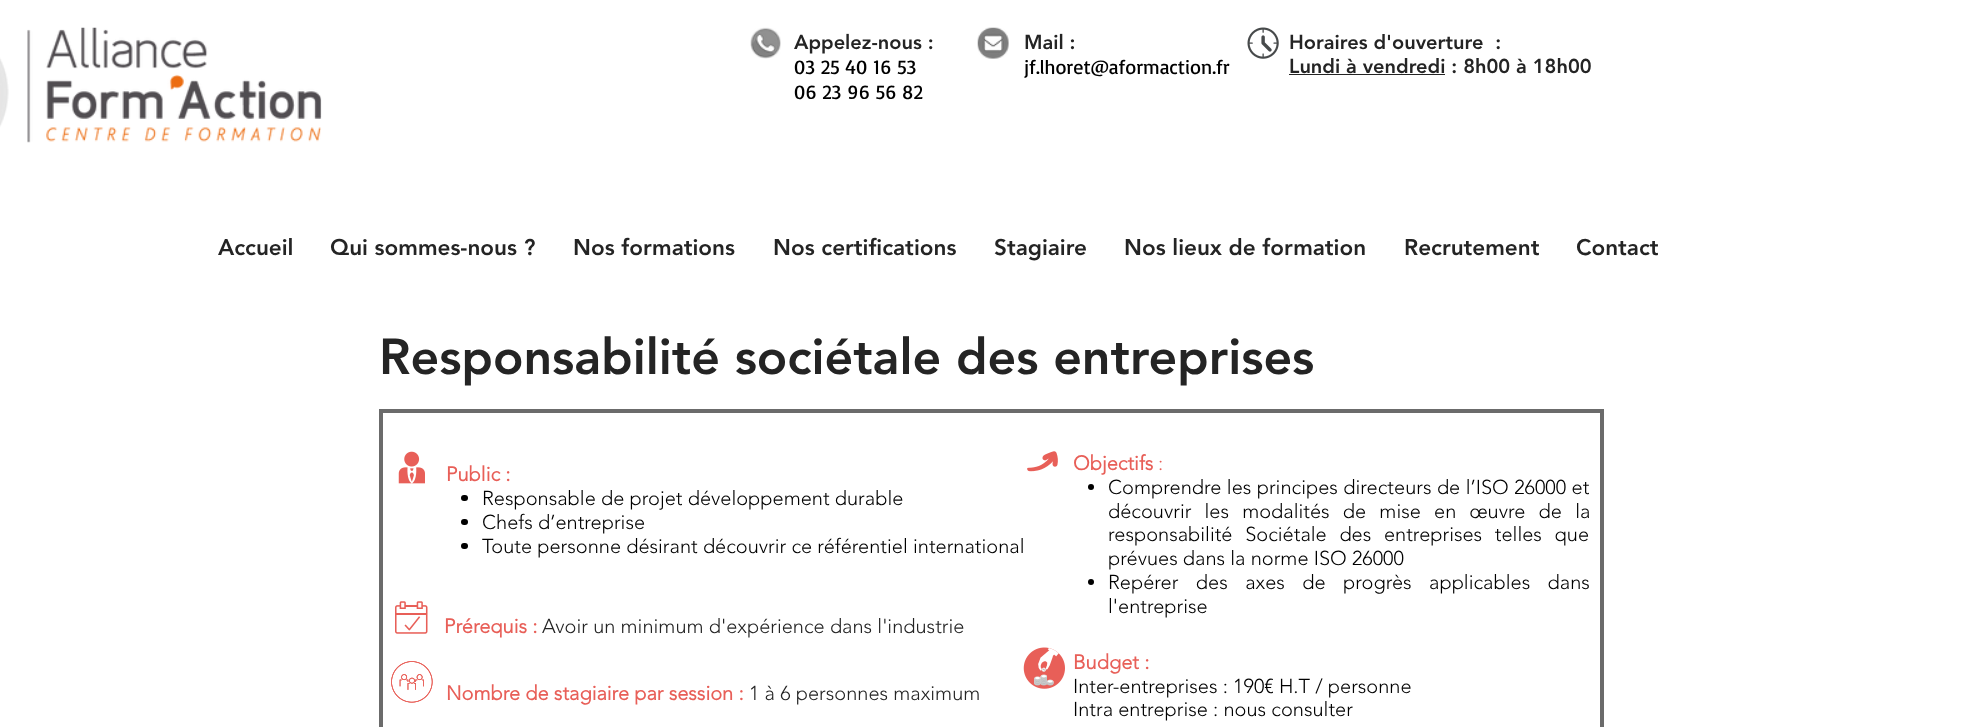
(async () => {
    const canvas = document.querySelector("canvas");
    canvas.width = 1982;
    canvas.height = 727;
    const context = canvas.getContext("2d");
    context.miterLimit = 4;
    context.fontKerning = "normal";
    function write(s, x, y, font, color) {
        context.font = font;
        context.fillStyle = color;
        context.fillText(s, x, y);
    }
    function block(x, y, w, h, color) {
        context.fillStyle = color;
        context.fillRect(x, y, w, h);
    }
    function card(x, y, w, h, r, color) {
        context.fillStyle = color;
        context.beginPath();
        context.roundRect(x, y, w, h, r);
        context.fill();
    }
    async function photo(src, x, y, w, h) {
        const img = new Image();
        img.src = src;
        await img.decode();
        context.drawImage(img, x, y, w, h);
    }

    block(0, 0, 1982, 727, "rgb(255, 255, 255)");
    await photo("media/1.png", 0, 27, 322, 116);
    await photo("media/2.png", 750, 27, 31, 32);
    write("Appelez-nous :", 794, 49, "900 20px 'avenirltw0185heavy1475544'", "rgb(36, 36, 36)");
    write("03 25 40 16 53", 794, 74, "20px Basic", "rgb(0, 0, 0)");
    write("06 23 96 56 82", 794, 99, "20px Basic", "rgb(0, 0, 0)");
    await photo("media/3.png", 977, 27, 32, 32);
    write("Mail :", 1024, 49, "900 20px 'avenirltw0185heavy1475544'", "rgb(36, 36, 36)");
    write("jf.lhoret@aformaction.fr", 1024, 74, "20px Basic", "rgb(0, 0, 0)");
    await photo("media/4.png", 1247, 27, 32, 32);
    write("Horaires d'ouverture  :", 1289, 49, "900 20px 'avenirltw0185heavy1475544'", "rgb(36, 36, 36)");
    write("Lundi à vendredi : 8h00 à 18h00", 1289, 73, "900 20px 'avenirltw0185heavy1475544'", "rgb(36, 36, 36)");
    block(1289, 74, 156, 1, "rgb(36, 36, 36)");
    write("Accueil", 218, 255, "900 22.5px 'avenirltw0185heavy1475544'", "rgb(36, 36, 36)");
    write("Qui sommes-nous ?", 330, 255, "900 22.5px 'avenirltw0185heavy1475544'", "rgb(36, 36, 36)");
    write("Nos formations", 573, 255, "900 22.5px 'avenirltw0185heavy1475544'", "rgb(36, 36, 36)");
    write("Nos certifications", 773, 255, "900 22.5px 'avenirltw0185heavy1475544'", "rgb(36, 36, 36)");
    write("Stagiaire", 994, 255, "900 22.5px 'avenirltw0185heavy1475544'", "rgb(36, 36, 36)");
    write("Nos lieux de formation", 1124, 255, "900 22.5px 'avenirltw0185heavy1475544'", "rgb(36, 36, 36)");
    write("Recrutement", 1404, 255, "900 22.5px 'avenirltw0185heavy1475544'", "rgb(36, 36, 36)");
    write("Contact", 1576, 255, "900 22.5px 'avenirltw0185heavy1475544'", "rgb(36, 36, 36)");
    write("Responsabilité sociétale des entreprises", 379, 374, "900 50px 'avenirltw0185heavy1475544'", "rgb(36, 36, 36)");
    context.strokeStyle = "rgb(107, 107, 107)";
    context.lineWidth = 4;
    context.strokeRect(381, 411, 1221, 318);
    await photo("media/5.png", 398, 451, 27, 33);
    write("Public :", 446, 481, "bold 20px 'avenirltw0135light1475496'", "rgb(232, 95, 88)");
    card(461, 495, 7, 6, 3, "rgb(0, 0, 0)");
    write("Responsable de projet développement durable", 482, 505, "300 20px 'avenirltw0135light1475496'", "rgb(0, 0, 0)");
    card(461, 519, 7, 6, 3, "rgb(0, 0, 0)");
    write("Chefs d’entreprise", 482, 529, "300 20px 'avenirltw0135light1475496'", "rgb(0, 0, 0)");
    card(461, 543, 7, 6, 3, "rgb(0, 0, 0)");
    write("Toute personne désirant découvrir ce référentiel international", 482, 553, "300 20px 'avenirltw0135light1475496'", "rgb(0, 0, 0)");
    await photo("media/6.png", 1027, 451, 31, 21);
    write("Objectifs", 1073, 470, "bold 20px 'avenirltw0135light1475496'", "rgb(232, 95, 88)");
    write(":", 1158, 470, "300 20px 'avenirltw0135light1475496'", "rgb(232, 95, 88)");
    context.fillStyle = "rgb(0, 0, 0)";
    context.beginPath();
    context.arc(1091, 487, 3, 0, Math.PI * 2);
    context.fill();
    context.wordSpacing = "0.25px";
    write("Comprendre les principes directeurs de l’ISO 26000 et", 1108, 494, "300 20px 'avenirltw0135light1475496'", "rgb(0, 0, 0)");
    context.wordSpacing = "8px";
    write("découvrir les modalités de mise en œuvre de la", 1108, 518, "300 20px 'avenirltw0135light1475496'", "rgb(0, 0, 0)");
    context.wordSpacing = "7.5px";
    write("responsabilité Sociétale des entreprises telles que", 1108, 541, "300 20px 'avenirltw0135light1475496'", "rgb(0, 0, 0)");
    context.wordSpacing = "0px";
    write("prévues dans la norme ISO 26000", 1108, 565, "300 20px 'avenirltw0135light1475496'", "rgb(0, 0, 0)");
    context.beginPath();
    context.arc(1091, 582, 3, 0, Math.PI * 2);
    context.fill();
    context.wordSpacing = "12.25px";
    write("Repérer des axes de progrès applicables dans", 1108, 589, "300 20px 'avenirltw0135light1475496'", "rgb(0, 0, 0)");
    context.wordSpacing = "0px";
    write("l'entreprise", 1108, 613, "300 20px 'avenirltw0135light1475496'", "rgb(0, 0, 0)");
    await photo("media/7.png", 395, 601, 33, 33);
    write("Prérequis :", 444, 633, "bold 20px 'avenirltw0135light1475496'", "rgb(232, 95, 88)");
    write("Avoir un minimum d'expérience dans l'industrie", 542, 633, "300 20px 'avenirltw0135light1475496'", "rgb(36, 36, 36)");
    await photo("media/8.png", 391, 661, 42, 42);
    await photo("media/9.png", 391, 661, 42, 42);
    await photo("media/10.png", 391, 661, 42, 42);
    write("Nombre de stagiaire par session :", 446, 700, "bold 20px 'avenirltw0135light1475496'", "rgb(232, 95, 88)");
    write("1 à 6 personnes maximum", 749, 700, "300 20px 'avenirltw0135light1475496'", "rgb(36, 36, 36)");
    await photo("media/11.png", 1023, 647, 42, 42);
    write("Budget :", 1073, 669, "bold 20px 'avenirltw0135light1475496'", "rgb(232, 95, 88)");
    write("Inter-entreprises : 190€ H.T / personne", 1073, 693, "300 20px 'avenirltw0135light1475496'", "rgb(0, 0, 0)");
    write("Intra entreprise : nous consulter", 1073, 716, "300 20px 'avenirltw0135light1475496'", "rgb(0, 0, 0)");
})();
